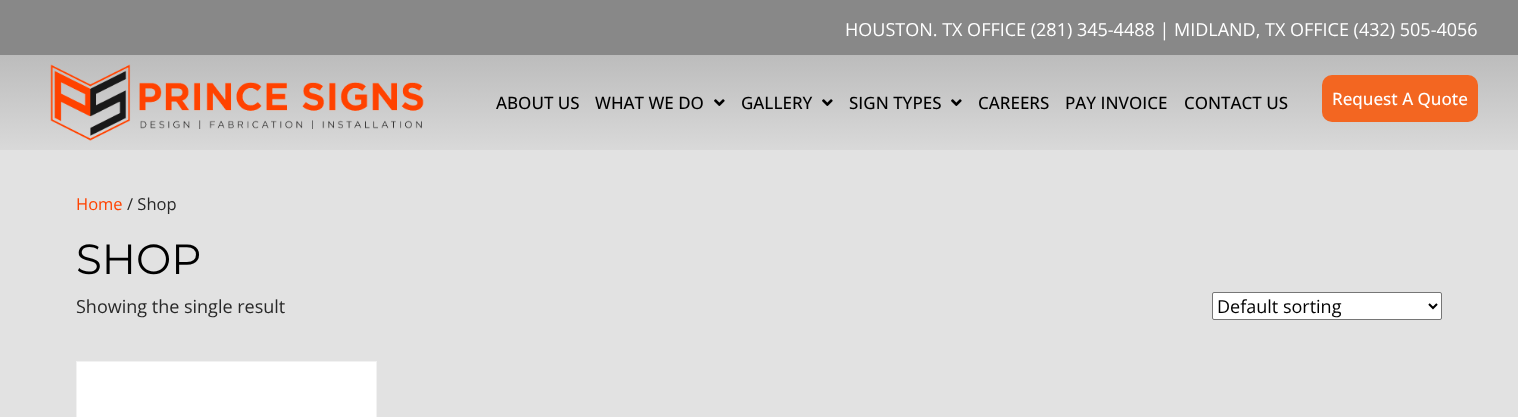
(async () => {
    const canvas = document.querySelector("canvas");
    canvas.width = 1518;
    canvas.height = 417;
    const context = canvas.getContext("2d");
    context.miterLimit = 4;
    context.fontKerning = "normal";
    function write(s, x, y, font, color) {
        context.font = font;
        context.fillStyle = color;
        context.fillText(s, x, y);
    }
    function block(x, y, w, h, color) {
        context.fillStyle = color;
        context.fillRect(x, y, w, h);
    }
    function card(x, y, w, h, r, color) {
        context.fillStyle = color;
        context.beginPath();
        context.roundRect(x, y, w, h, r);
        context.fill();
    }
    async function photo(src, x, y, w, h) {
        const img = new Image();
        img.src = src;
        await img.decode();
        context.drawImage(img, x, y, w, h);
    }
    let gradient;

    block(0, 0, 1518, 417, "rgb(226, 226, 226)");
    block(0, 0, 1518, 55, "rgb(136, 136, 136)");
    write("HOUSTON. TX OFFICE (281) 345-4488 | MIDLAND, TX OFFICE (432) 505-4056", 845, 36, "18px Open Sans", "rgb(255, 255, 255)");
    gradient = context.createLinearGradient(759, 55, 759, 179);
    gradient.addColorStop(0, "rgb(188, 188, 188)");
    gradient.addColorStop(1, "rgb(226, 226, 226)");
    context.fillStyle = gradient;
    context.fillRect(0, 55, 1518, 95);
    await photo("media/1.png", 50, 64, 374, 77);
    write("ABOUT US", 496, 109, "500 17px Open Sans", "rgb(0, 0, 0)");
    write("WHAT WE DO", 595, 109, "500 17px Open Sans", "rgb(0, 0, 0)");
    await photo("media/2.png", 714, 99, 11, 7);
    write("GALLERY", 741, 109, "500 17px Open Sans", "rgb(0, 0, 0)");
    await photo("media/2.png", 822, 99, 11, 7);
    write("SIGN TYPES", 849, 109, "500 17px Open Sans", "rgb(0, 0, 0)");
    await photo("media/2.png", 951, 99, 11, 7);
    write("CAREERS", 978, 109, "500 17px Open Sans", "rgb(0, 0, 0)");
    write("PAY INVOICE", 1065, 109, "500 17px Open Sans", "rgb(0, 0, 0)");
    write("CONTACT US", 1184, 109, "500 17px Open Sans", "rgb(0, 0, 0)");
    card(1322, 75, 156, 47, 10, "rgb(243, 102, 33)");
    write("Request A Quote", 1332, 105, "500 17px Open Sans", "rgb(255, 255, 255)");
    write("Home", 76, 210, "16.5px Open Sans", "rgb(255, 66, 0)");
    write("/ Shop", 127, 210, "16.5px Open Sans", "rgb(40, 40, 40)");
    write("SHOP", 76, 274, "100 42px Montserrat", "rgb(0, 0, 0)");
    write("Showing the single result", 76, 313, "18px Open Sans", "rgb(40, 40, 40)");
    context.fillStyle = "rgb(255, 255, 255)";
    context.beginPath();
    context.roundRect(1212.5, 292.5, 229, 27, 1.5);
    context.fill();
    context.strokeStyle = "rgb(118, 118, 118)";
    context.stroke();
    context.beginPath();
    context.moveTo(1429, 304);
    context.lineTo(1433, 308);
    context.lineTo(1437, 304);
    context.strokeStyle = "rgb(0, 0, 0)";
    context.lineWidth = 2;
    context.stroke();
    write("Default sorting", 1217, 313, "18px Open Sans", "rgb(0, 0, 0)");
    context.strokeStyle = "rgb(242, 242, 242)";
    context.lineWidth = 1;
    context.strokeRect(76.5, 361.5, 300, 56);
    block(77, 362, 299, 55, "rgb(255, 255, 255)");
})();
